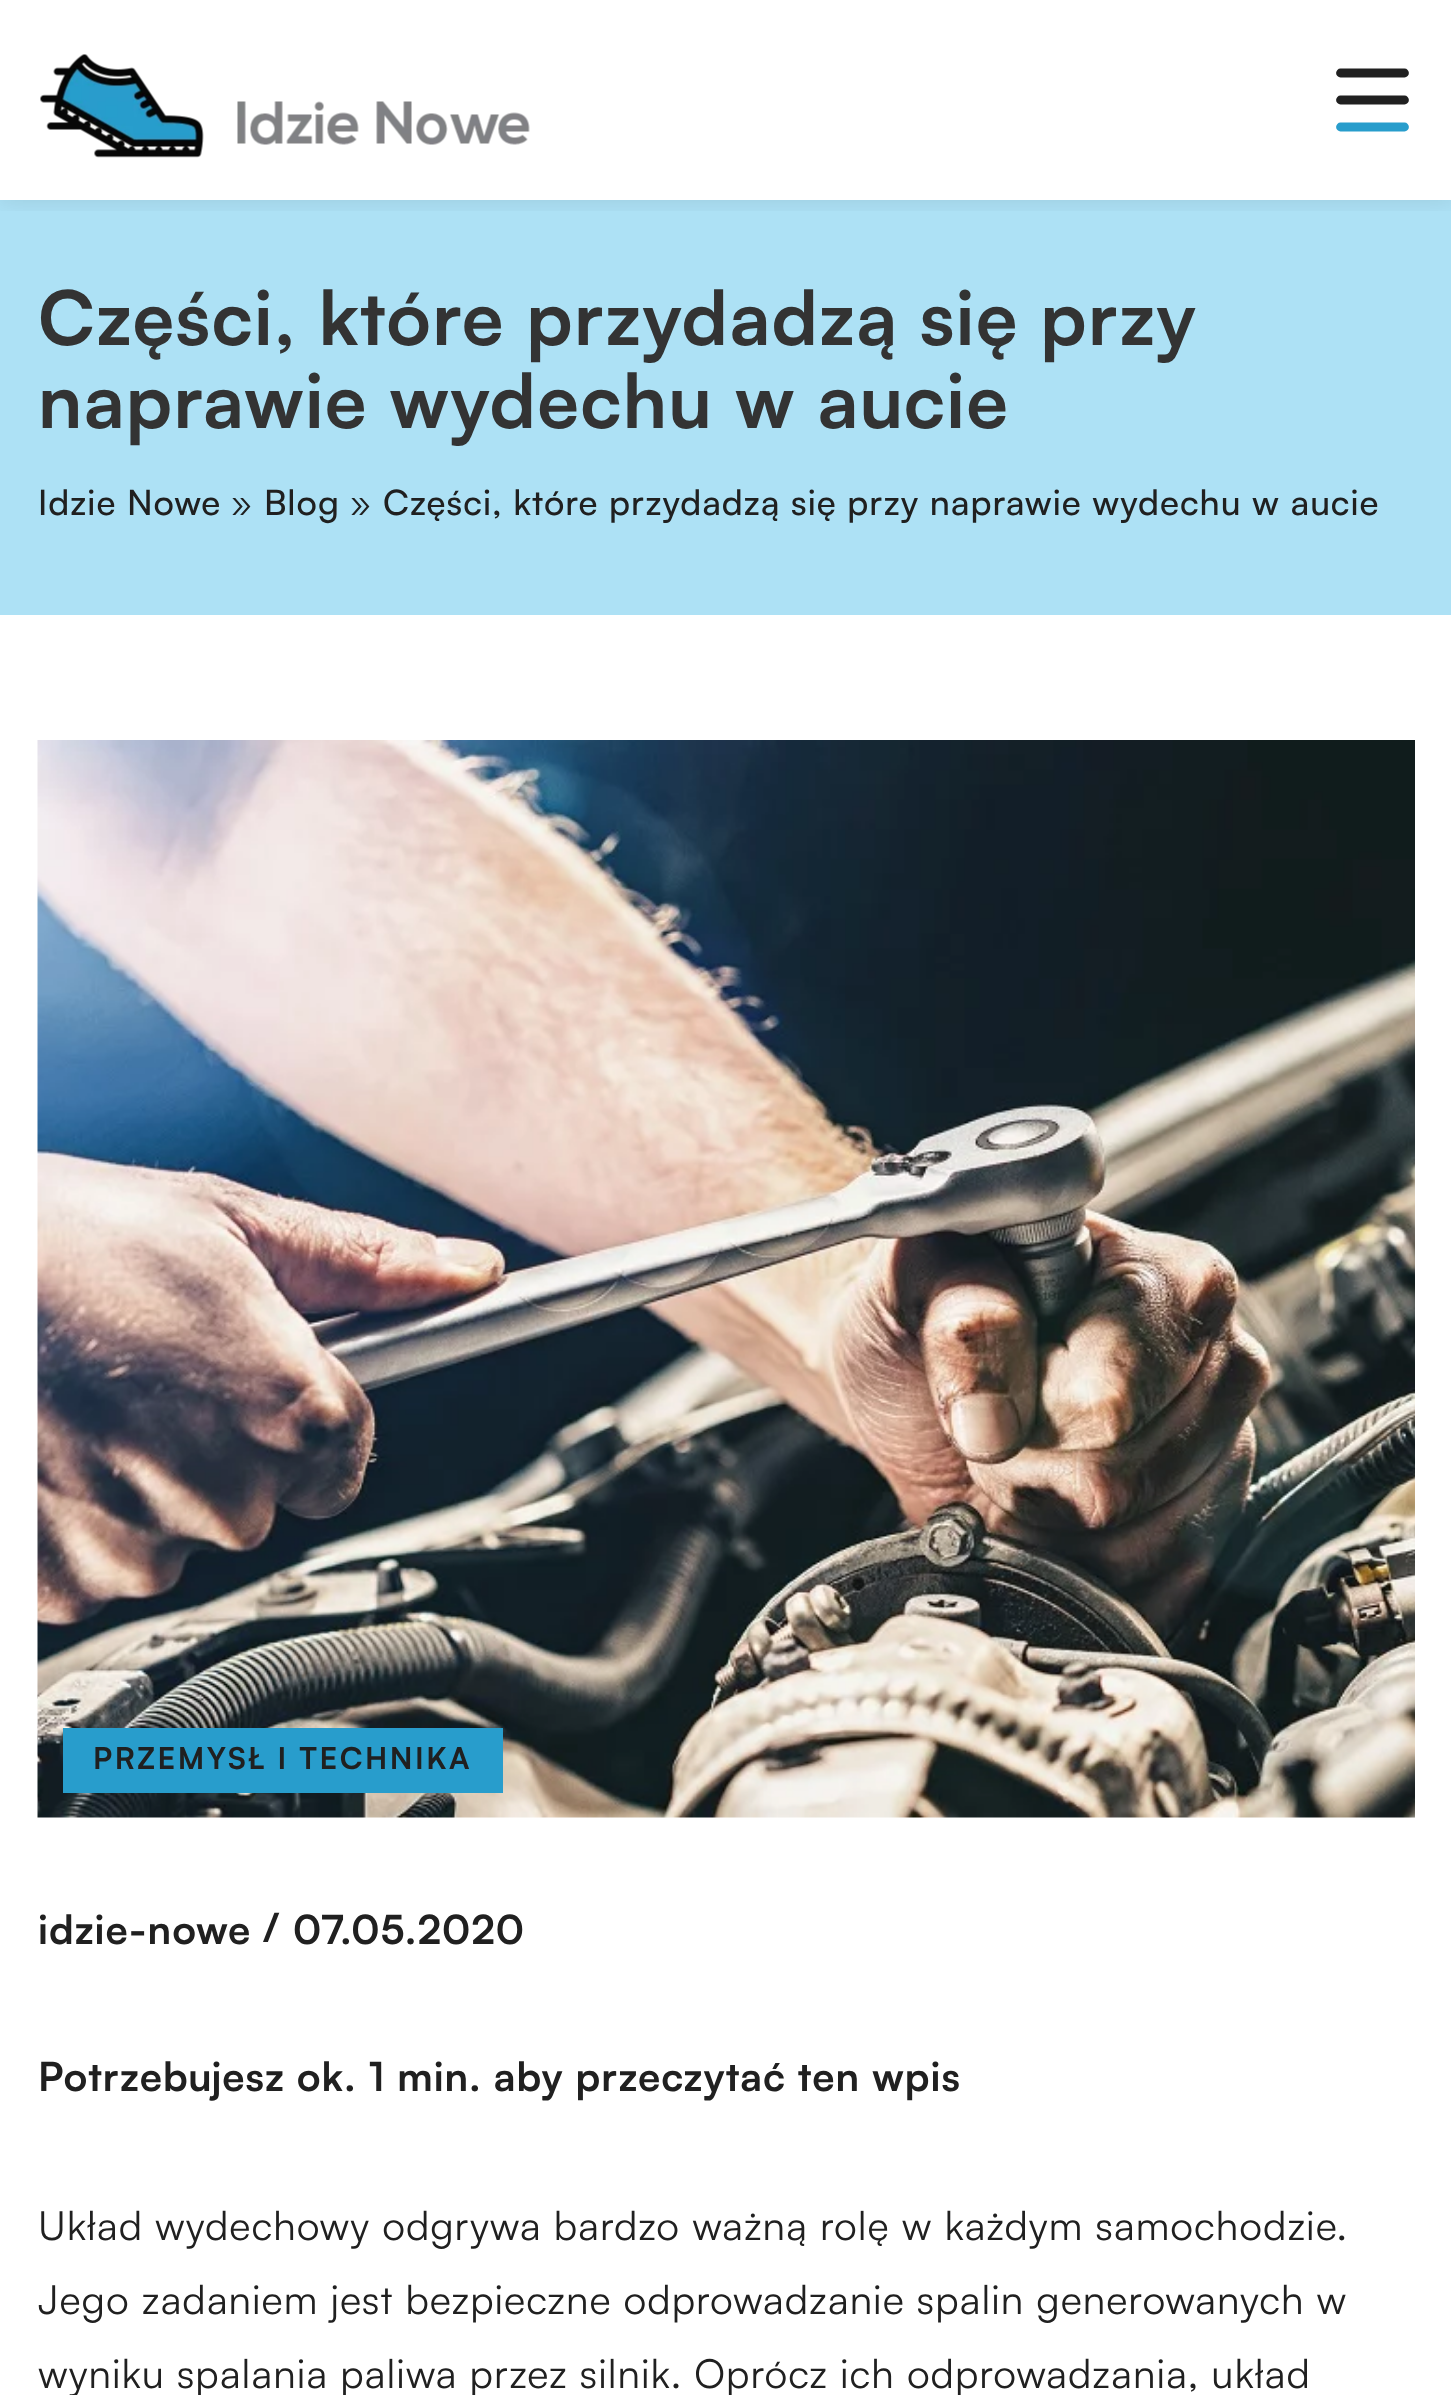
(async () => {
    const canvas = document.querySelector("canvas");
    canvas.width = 1451;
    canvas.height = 2395;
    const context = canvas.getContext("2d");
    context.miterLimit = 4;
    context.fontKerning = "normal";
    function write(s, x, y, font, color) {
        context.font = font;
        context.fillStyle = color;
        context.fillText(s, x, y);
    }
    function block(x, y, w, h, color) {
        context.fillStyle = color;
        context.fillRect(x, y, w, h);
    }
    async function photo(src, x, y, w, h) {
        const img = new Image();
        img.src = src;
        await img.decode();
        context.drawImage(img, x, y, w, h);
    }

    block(0, 0, 1451, 2395, "rgb(255, 255, 255)");
    block(0, 200, 1451, 415, "rgb(173, 225, 245)");
    context.save();
    context.beginPath();
    context.rect(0, 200, 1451, 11);
    context.clip();
    context.fillStyle = "rgba(0, 0, 0, 0.1)";
    context.filter = "blur(12.5px)";
    context.beginPath();
    context.rect(0, 0, 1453, 200);
    context.fill();
    context.filter = "none";
    context.restore();
    await photo("media/1.png", 40, 54, 490, 104);
    context.beginPath();
    context.moveTo(1340.5, 73);
    context.lineTo(1404.5, 73);
    context.strokeStyle = "rgb(32, 32, 32)";
    context.lineWidth = 8.8;
    context.lineCap = "round";
    context.stroke();
    context.beginPath();
    context.moveTo(1340.5, 100);
    context.lineTo(1404.5, 100);
    context.stroke();
    context.beginPath();
    context.moveTo(1404.5, 127);
    context.lineTo(1340.5, 127);
    context.strokeStyle = "rgb(40, 157, 204)";
    context.stroke();
    context.letterSpacing = "1.25px";
    write("Części, które przydadzą się przy", 38, 345, "bold 75px Satoshi", "rgb(51, 51, 51)");
    write("naprawie wydechu w aucie", 38, 428, "bold 75px Satoshi", "rgb(51, 51, 51)");
    context.letterSpacing = "1px";
    write("Idzie Nowe", 38, 515, "500 35px Satoshi", "rgb(32, 32, 32)");
    write("»", 231, 515, "35px Satoshi", "rgb(32, 32, 32)");
    write("Blog", 264, 515, "500 35px Satoshi", "rgb(32, 32, 32)");
    write("»", 350, 515, "35px Satoshi", "rgb(32, 32, 32)");
    write("Części, które przydadzą się przy naprawie wydechu w aucie", 383, 515, "500 35px Satoshi", "rgb(32, 32, 32)");
    await photo("media/2.png", 37, 740, 1378, 1078);
    block(63, 1728, 440, 65, "rgb(40, 157, 204)");
    context.letterSpacing = "2.5px";
    write("PRZEMYSŁ I TECHNIKA", 93, 1769, "bold 30px Satoshi", "rgb(32, 32, 32)");
    context.letterSpacing = "1px";
    write("idzie-nowe", 38, 1944, "bold 40px Satoshi", "rgb(32, 32, 32)");
    write("/", 263, 1942, "bold 40px Satoshi", "rgb(32, 32, 32)");
    write("07.05.2020", 293, 1944, "bold 40px Satoshi", "rgb(32, 32, 32)");
    write("Potrzebujesz ok. 1 min. aby przeczytać ten wpis", 38, 2091, "bold 40px Satoshi", "rgb(32, 32, 32)");
    write("Układ wydechowy odgrywa bardzo ważną rolę w każdym samochodzie.", 38, 2240, "40px Satoshi", "rgb(32, 32, 32)");
    write("Jego zadaniem jest bezpieczne odprowadzanie spalin generowanych w", 38, 2314, "40px Satoshi", "rgb(32, 32, 32)");
    write("wyniku spalania paliwa przez silnik. Oprócz ich odprowadzania, układ", 38, 2388, "40px Satoshi", "rgb(32, 32, 32)");
})();
